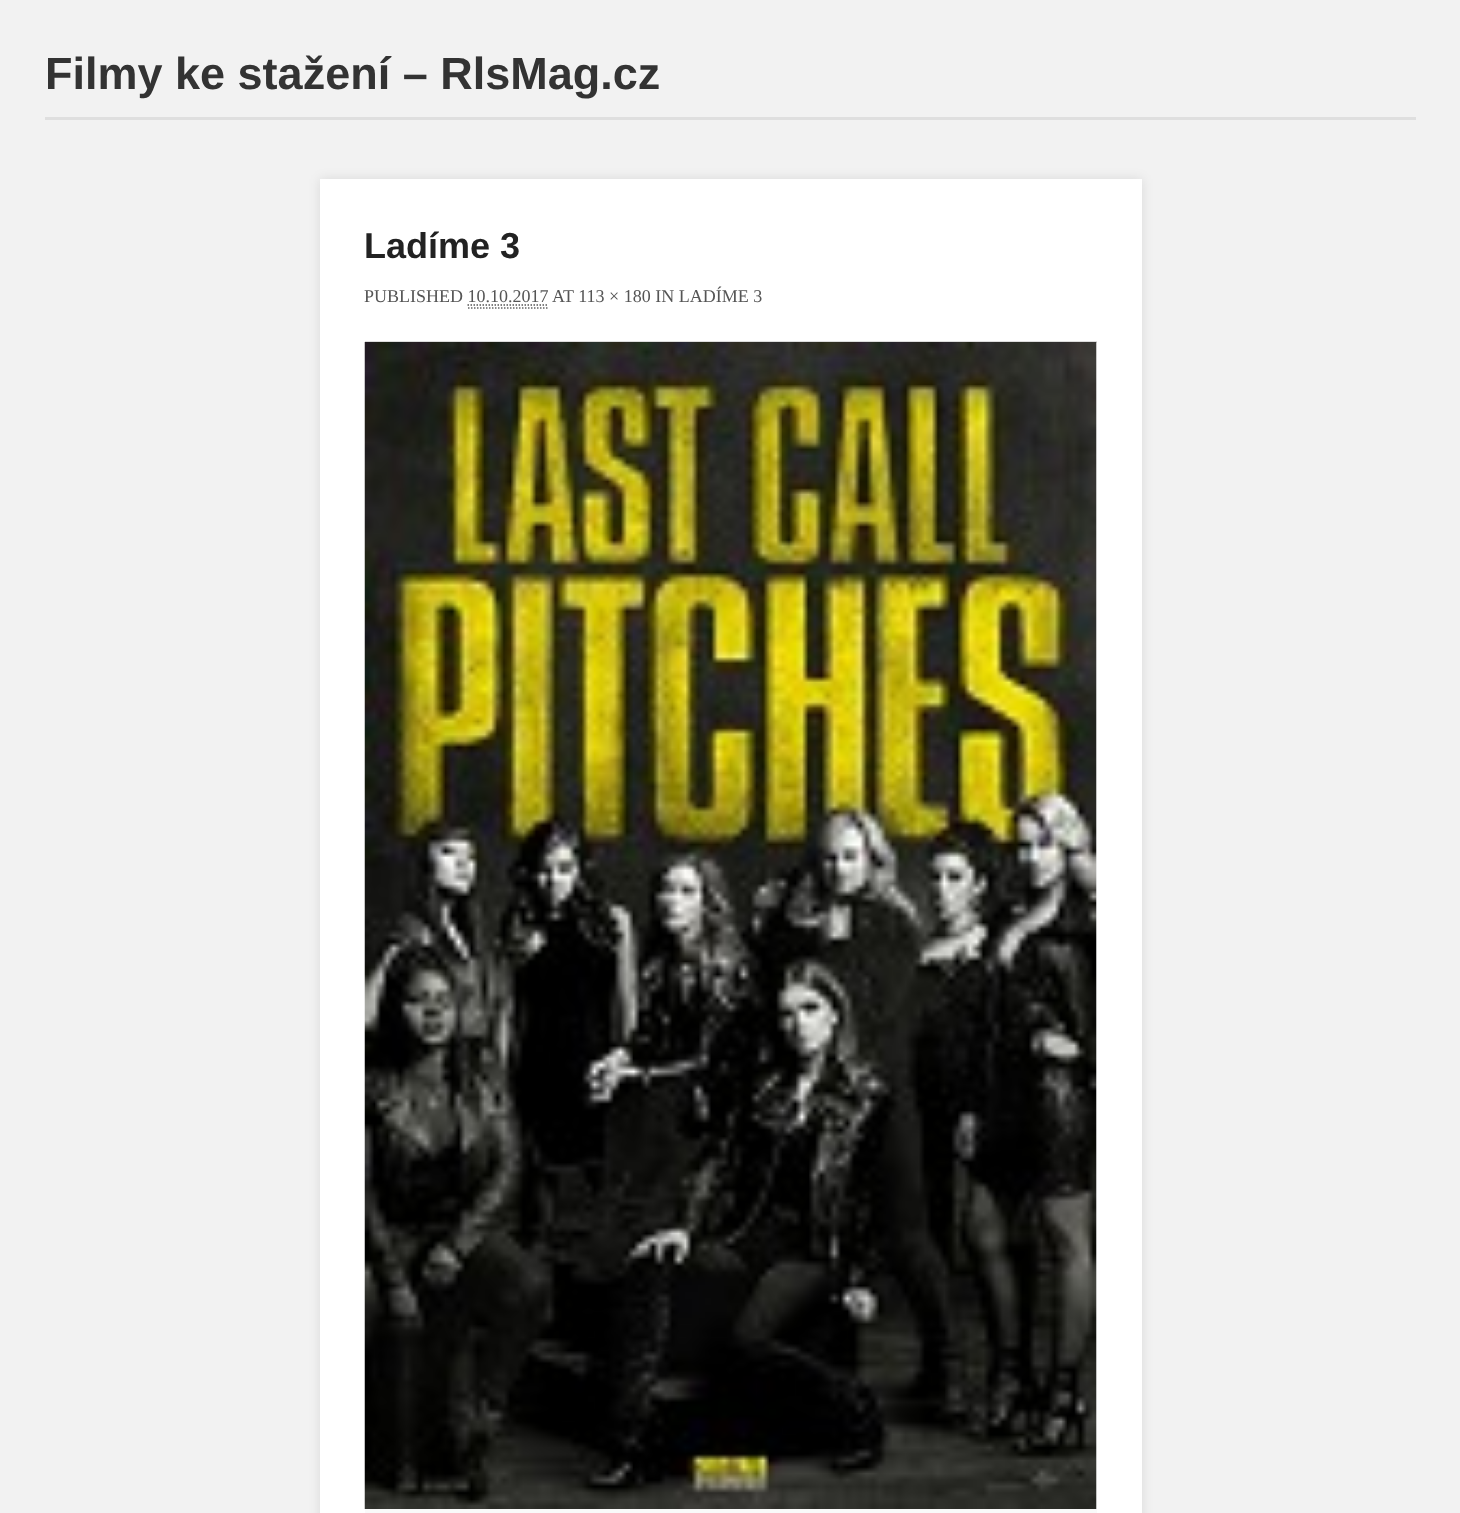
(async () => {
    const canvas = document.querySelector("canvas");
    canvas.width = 1460;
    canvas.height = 1513;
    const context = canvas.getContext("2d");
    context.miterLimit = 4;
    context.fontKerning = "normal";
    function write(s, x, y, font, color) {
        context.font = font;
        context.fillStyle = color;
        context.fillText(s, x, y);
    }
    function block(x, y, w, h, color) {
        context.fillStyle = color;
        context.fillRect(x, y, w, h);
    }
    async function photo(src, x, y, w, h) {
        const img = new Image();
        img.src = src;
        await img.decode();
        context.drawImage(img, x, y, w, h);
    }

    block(0, 0, 1460, 1513, "rgb(242, 242, 242)");
    block(45, 117, 1371, 3, "rgb(223, 223, 223)");
    write("Filmy ke stažení – RlsMag.cz", 45, 89, "bold 45px Liberation Sans", "rgb(51, 51, 51)");
    context.fillStyle = "rgba(0, 0, 0, 0.1)";
    context.filter = "blur(6px)";
    context.beginPath();
    context.rect(320, 179, 822, 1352);
    context.fill();
    context.filter = "none";
    block(320, 179, 822, 1334, "rgb(255, 255, 255)");
    write("Ladíme 3", 364, 258, "bold 36px Liberation Sans", "rgb(34, 34, 34)");
    write("PUBLISHED 10.10.2017", 364, 302, "18px Liberation Serif", "rgb(85, 85, 85)");
    write("AT 113 × 180 IN LADÍME 3", 552, 302, "18px Liberation Serif", "rgb(85, 85, 85)");
    context.beginPath();
    context.moveTo(467.5, 305);
    context.lineTo(548.5, 305);
    context.strokeStyle = "rgb(85, 85, 85)";
    context.lineWidth = 1.5;
    context.setLineDash([1.5, 1.5]);
    context.stroke();
    context.beginPath();
    context.moveTo(468, 308);
    context.lineTo(549, 308);
    context.strokeStyle = "rgb(102, 102, 102)";
    context.stroke();
    block(365, 343, 732, 1170, "rgb(249, 249, 249)");
    block(365, 341, 732, 2, "rgb(221, 221, 221)");
    await photo("media/1.png", 364, 342, 733, 1167);
})();
